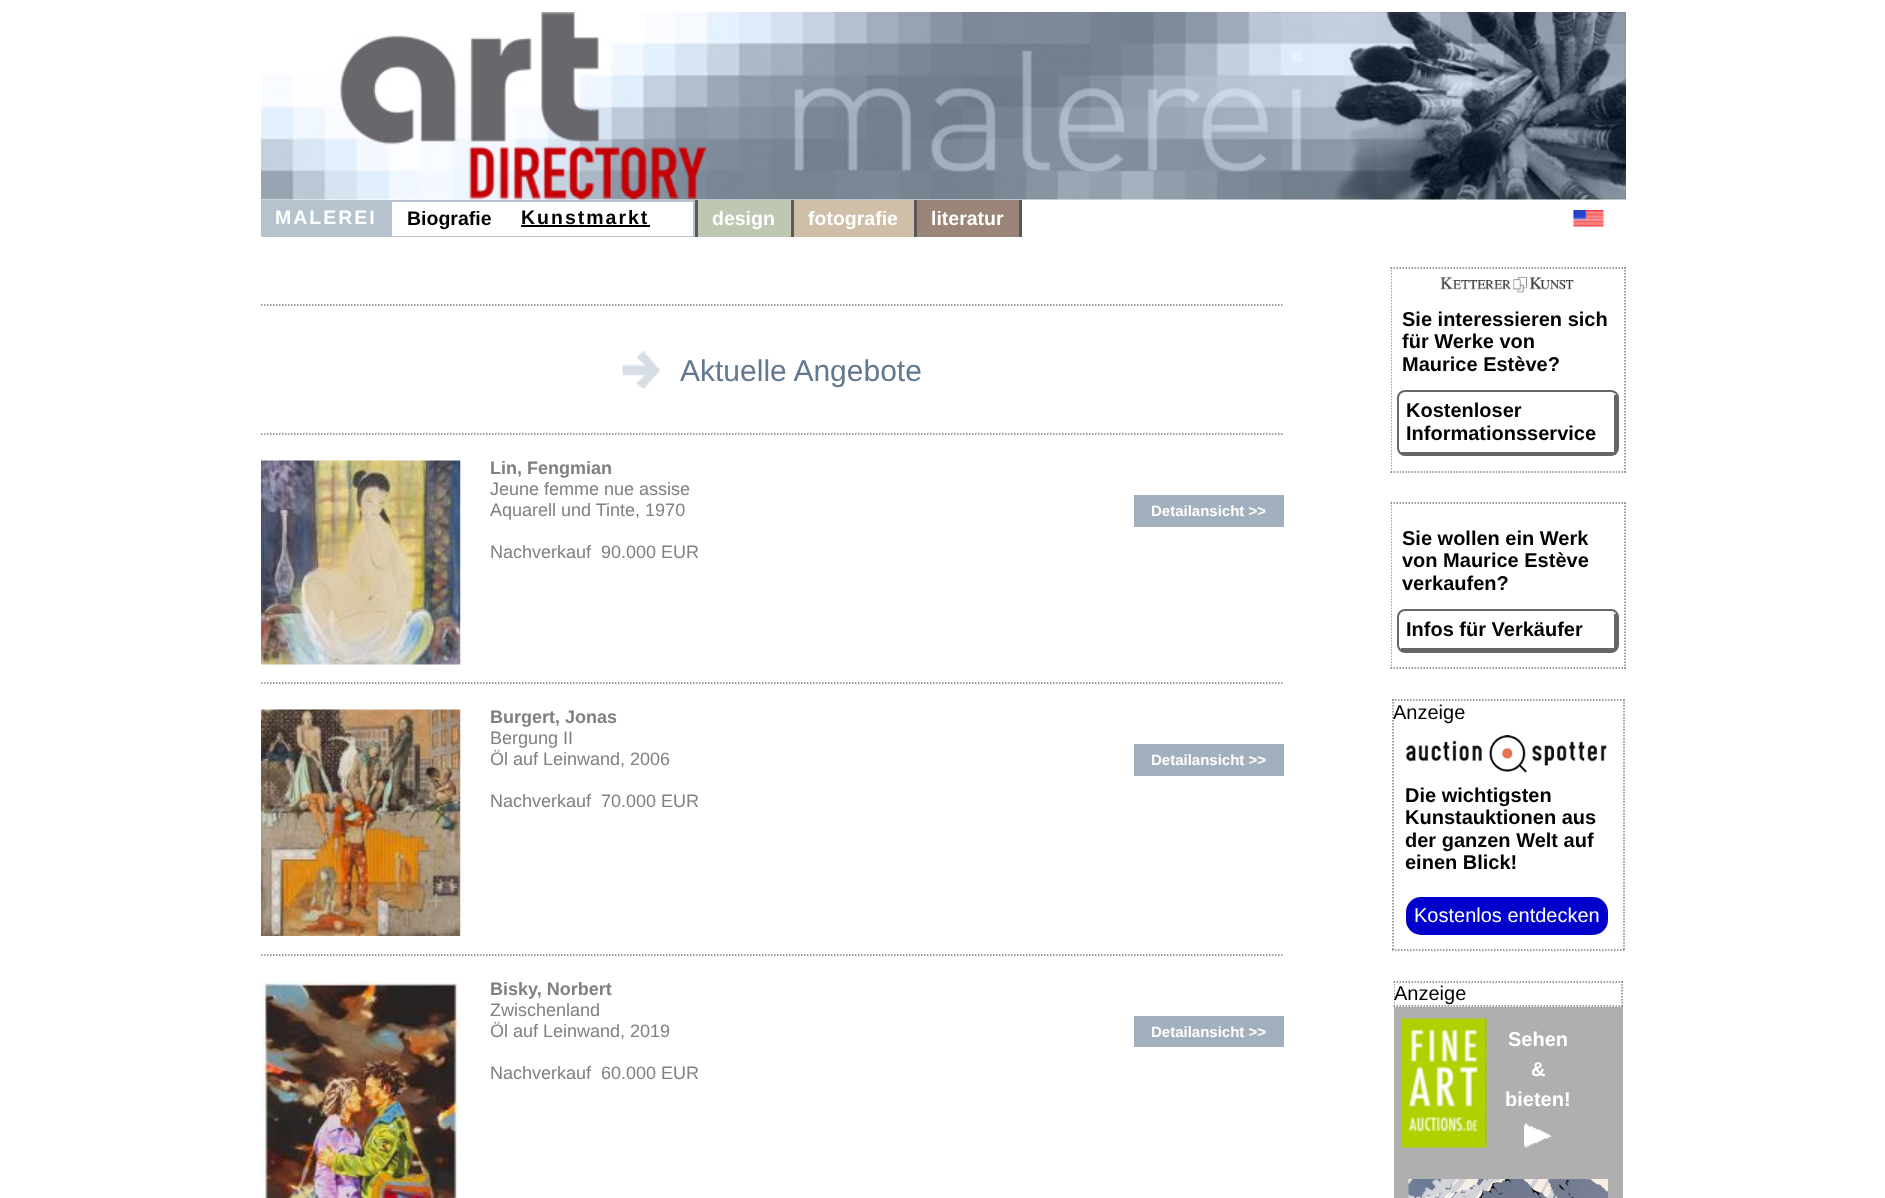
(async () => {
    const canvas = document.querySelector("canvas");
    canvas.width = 1885;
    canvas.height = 1198;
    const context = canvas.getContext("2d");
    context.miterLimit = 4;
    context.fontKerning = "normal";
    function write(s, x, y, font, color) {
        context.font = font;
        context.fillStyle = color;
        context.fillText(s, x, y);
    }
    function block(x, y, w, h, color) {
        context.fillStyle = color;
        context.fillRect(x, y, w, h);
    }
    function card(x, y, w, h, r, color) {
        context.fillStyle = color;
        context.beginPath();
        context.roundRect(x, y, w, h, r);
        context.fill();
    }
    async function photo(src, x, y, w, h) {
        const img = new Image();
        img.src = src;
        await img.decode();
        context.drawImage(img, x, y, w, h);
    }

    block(0, 0, 1885, 1198, "rgb(255, 255, 255)");
    await photo("media/1.png", 261, 12, 1365, 188);
    block(261, 200, 131, 37, "rgb(182, 194, 206)");
    context.letterSpacing = "2px";
    write("MALEREI", 275, 224, "bold 19.5px Liberation Sans", "rgb(255, 255, 255)");
    block(392, 200, 273, 2, "rgb(182, 194, 206)");
    block(392, 236, 273, 1, "rgb(182, 194, 206)");
    context.letterSpacing = "0px";
    write("Biografie", 407, 225, "bold 19.5px Liberation Sans", "rgb(0, 0, 0)");
    context.letterSpacing = "2px";
    write("Kunstmarkt", 521, 224, "bold 19.5px Liberation Sans", "rgb(0, 0, 0)");
    block(521, 225, 129, 2, "rgb(0, 0, 0)");
    block(693, 200, 2, 37, "rgb(182, 194, 206)");
    block(665, 200, 30, 2, "rgb(182, 194, 206)");
    block(665, 236, 30, 1, "rgb(182, 194, 206)");
    block(695, 200, 3, 37, "rgb(89, 89, 89)");
    block(698, 200, 93, 37, "rgb(190, 199, 178)");
    block(791, 200, 3, 37, "rgb(89, 89, 89)");
    context.letterSpacing = "0px";
    write("design", 712, 225, "bold 19.5px Liberation Sans", "rgb(255, 255, 255)");
    block(794, 200, 120, 37, "rgb(207, 190, 168)");
    block(914, 200, 3, 37, "rgb(89, 89, 89)");
    write("fotografie", 808, 225, "bold 19.5px Liberation Sans", "rgb(255, 255, 255)");
    block(917, 200, 102, 37, "rgb(155, 133, 120)");
    block(1019, 200, 3, 37, "rgb(89, 89, 89)");
    write("literatur", 931, 225, "bold 19.5px Liberation Sans", "rgb(255, 255, 255)");
    await photo("media/2.png", 1573, 210, 31, 17);
    context.beginPath();
    context.moveTo(261, 305);
    context.lineTo(1284, 305);
    context.strokeStyle = "rgb(128, 128, 128)";
    context.lineWidth = 1.5;
    context.setLineDash([1.5, 1.5]);
    context.stroke();
    await photo("media/3.png", 622, 351, 38, 38);
    write("Aktuelle Angebote", 680, 381, "30px Liberation Sans", "rgb(98, 120, 143)");
    context.beginPath();
    context.moveTo(261, 434);
    context.lineTo(1284, 434);
    context.stroke();
    await photo("media/4.png", 261, 460, 200, 205);
    write("Lin, Fengmian", 490, 474, "bold 18px Liberation Sans", "rgb(128, 128, 128)");
    write("Jeune femme nue assise", 490, 495, "18px Liberation Sans", "rgb(128, 128, 128)");
    write("Aquarell und Tinte, 1970", 490, 516, "18px Liberation Sans", "rgb(128, 128, 128)");
    write("Nachverkauf  90.000 EUR", 490, 558, "18px Liberation Sans", "rgb(128, 128, 128)");
    block(1134, 495, 150, 32, "rgb(162, 176, 189)");
    write("Detailansicht >>", 1151, 516, "bold 15px Liberation Sans", "rgb(255, 255, 255)");
    context.beginPath();
    context.moveTo(261, 683);
    context.lineTo(1284, 683);
    context.stroke();
    await photo("media/5.png", 261, 709, 200, 227);
    write("Burgert, Jonas", 490, 723, "bold 18px Liberation Sans", "rgb(128, 128, 128)");
    write("Bergung II", 490, 744, "18px Liberation Sans", "rgb(128, 128, 128)");
    write("Öl auf Leinwand, 2006", 490, 765, "18px Liberation Sans", "rgb(128, 128, 128)");
    write("Nachverkauf  70.000 EUR", 490, 807, "18px Liberation Sans", "rgb(128, 128, 128)");
    block(1134, 744, 150, 32, "rgb(162, 176, 189)");
    write("Detailansicht >>", 1151, 765, "bold 15px Liberation Sans", "rgb(255, 255, 255)");
    context.beginPath();
    context.moveTo(261, 955);
    context.lineTo(1284, 955);
    context.stroke();
    await photo("media/6.png", 261, 981, 199, 217);
    write("Bisky, Norbert", 490, 995, "bold 18px Liberation Sans", "rgb(128, 128, 128)");
    write("Zwischenland", 490, 1016, "18px Liberation Sans", "rgb(128, 128, 128)");
    write("Öl auf Leinwand, 2019", 490, 1037, "18px Liberation Sans", "rgb(128, 128, 128)");
    write("Nachverkauf  60.000 EUR", 490, 1079, "18px Liberation Sans", "rgb(128, 128, 128)");
    block(1134, 1016, 150, 31, "rgb(162, 176, 189)");
    write("Detailansicht >>", 1151, 1037, "bold 15px Liberation Sans", "rgb(255, 255, 255)");
    context.beginPath();
    context.moveTo(1390.5, 268);
    context.lineTo(1626, 268);
    context.stroke();
    context.beginPath();
    context.moveTo(1625, 267);
    context.lineTo(1625, 472.5);
    context.stroke();
    context.beginPath();
    context.moveTo(1390.5, 472);
    context.lineTo(1626, 472);
    context.stroke();
    context.save();
    context.beginPath();
    context.rect(1391, 237, 235, 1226);
    context.clip();
    context.beginPath();
    context.moveTo(1391, 267);
    context.lineTo(1391, 472.5);
    context.stroke();
    context.restore();
    await photo("media/7.png", 1440, 276, 134, 17);
    write("Sie interessieren sich", 1402, 326, "bold 20px Liberation Sans", "rgb(0, 0, 0)");
    write("für Werke von", 1402, 348, "bold 20px Liberation Sans", "rgb(0, 0, 0)");
    write("Maurice Estève?", 1402, 371, "bold 20px Liberation Sans", "rgb(0, 0, 0)");
    context.beginPath();
    context.roundRect(1398, 391, 220, 64, 7);
    context.strokeStyle = "rgb(102, 102, 102)";
    context.lineWidth = 2;
    context.setLineDash([]);
    context.stroke();
    block(1614, 395, 3, 58, "rgb(102, 102, 102)");
    block(1401, 452, 215, 3, "rgb(102, 102, 102)");
    write("Kostenloser", 1406, 417, "bold 20px Liberation Sans", "rgb(0, 0, 0)");
    write("Informationsservice", 1406, 440, "bold 20px Liberation Sans", "rgb(0, 0, 0)");
    context.beginPath();
    context.moveTo(1390.5, 503);
    context.lineTo(1626, 503);
    context.strokeStyle = "rgb(128, 128, 128)";
    context.lineWidth = 1.5;
    context.setLineDash([1.5, 1.5]);
    context.stroke();
    context.beginPath();
    context.moveTo(1625, 502.5);
    context.lineTo(1625, 669);
    context.stroke();
    context.beginPath();
    context.moveTo(1390.5, 668);
    context.lineTo(1626, 668);
    context.stroke();
    context.save();
    context.beginPath();
    context.rect(1391, 237, 235, 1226);
    context.clip();
    context.beginPath();
    context.moveTo(1391, 502.5);
    context.lineTo(1391, 669);
    context.stroke();
    context.restore();
    write("Sie wollen ein Werk", 1402, 545, "bold 20px Liberation Sans", "rgb(0, 0, 0)");
    write("von Maurice Estève", 1402, 567, "bold 20px Liberation Sans", "rgb(0, 0, 0)");
    write("verkaufen?", 1402, 590, "bold 20px Liberation Sans", "rgb(0, 0, 0)");
    context.beginPath();
    context.roundRect(1398, 610, 220, 42, 7);
    context.strokeStyle = "rgb(102, 102, 102)";
    context.lineWidth = 2;
    context.setLineDash([]);
    context.stroke();
    block(1614, 614, 3, 36, "rgb(102, 102, 102)");
    block(1401, 648, 215, 3, "rgb(102, 102, 102)");
    write("Infos für Verkäufer", 1406, 636, "bold 20px Liberation Sans", "rgb(0, 0, 0)");
    context.beginPath();
    context.moveTo(1392, 700);
    context.lineTo(1624.5, 700);
    context.strokeStyle = "rgb(128, 128, 128)";
    context.lineWidth = 1.5;
    context.setLineDash([1.5, 1.5]);
    context.stroke();
    context.beginPath();
    context.moveTo(1624, 699);
    context.lineTo(1624, 951);
    context.stroke();
    context.beginPath();
    context.moveTo(1392, 950);
    context.lineTo(1624.5, 950);
    context.stroke();
    context.beginPath();
    context.moveTo(1393, 699);
    context.lineTo(1393, 951);
    context.stroke();
    write("Anzeige", 1393, 719, "20px Liberation Sans", "rgb(0, 0, 0)");
    await photo("media/8.png", 1405, 735, 202, 38);
    write("Die wichtigsten", 1405, 802, "bold 20px Liberation Sans", "rgb(0, 0, 0)");
    write("Kunstauktionen aus", 1405, 824, "bold 20px Liberation Sans", "rgb(0, 0, 0)");
    write("der ganzen Welt auf", 1405, 847, "bold 20px Liberation Sans", "rgb(0, 0, 0)");
    write("einen Blick!", 1405, 869, "bold 20px Liberation Sans", "rgb(0, 0, 0)");
    card(1406, 897, 202, 38, 15, "rgb(0, 0, 204)");
    write("Kostenlos entdecken", 1414, 922, "20px Liberation Sans", "rgb(255, 255, 255)");
    block(1394, 1007, 229, 191, "rgb(175, 175, 175)");
    context.beginPath();
    context.moveTo(1393.5, 982);
    context.lineTo(1623, 982);
    context.stroke();
    context.beginPath();
    context.moveTo(1622, 981);
    context.lineTo(1622, 1006.5);
    context.stroke();
    context.beginPath();
    context.moveTo(1393.5, 1006);
    context.lineTo(1623, 1006);
    context.stroke();
    context.save();
    context.beginPath();
    context.rect(1394, 981, 229, 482);
    context.clip();
    context.beginPath();
    context.moveTo(1394, 981);
    context.lineTo(1394, 1006.5);
    context.stroke();
    context.restore();
    write("Anzeige", 1394, 1000, "20px Liberation Sans", "rgb(0, 0, 0)");
    await photo("media/9.png", 1401, 1018, 86, 130);
    write("Sehen", 1508, 1046, "bold 20px Liberation Sans", "rgb(255, 255, 255)");
    write("&", 1531, 1076, "bold 20px Liberation Sans", "rgb(255, 255, 255)");
    write("bieten!", 1505, 1106, "bold 20px Liberation Sans", "rgb(255, 255, 255)");
    await photo("media/10.png", 1524, 1123, 28, 25);
    await photo("media/11.png", 1408, 1179, 200, 19);
})();
